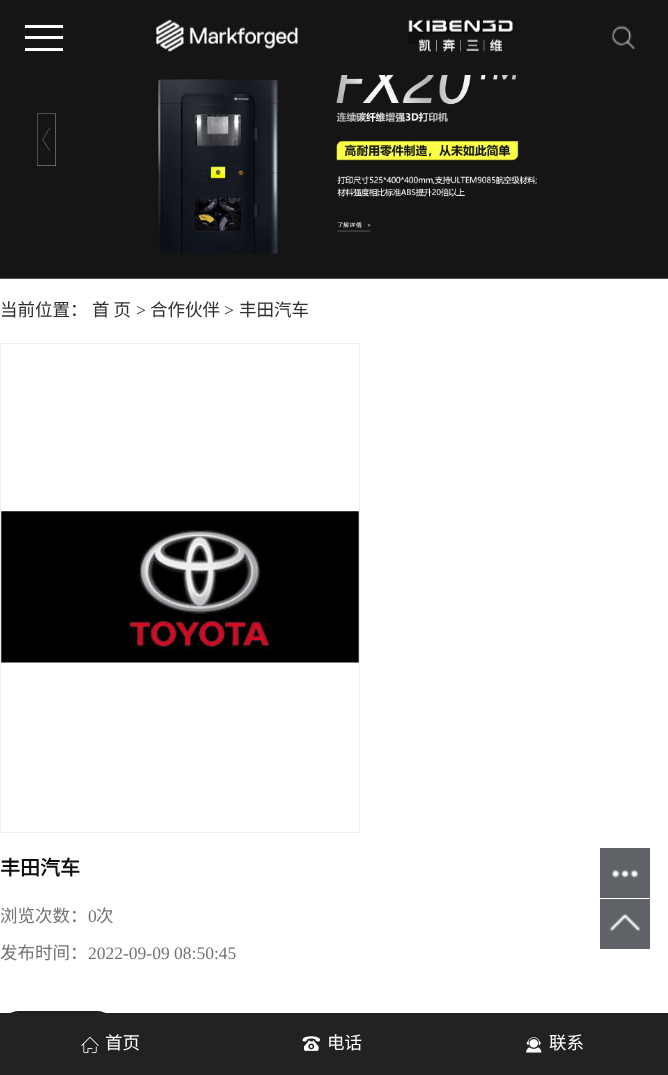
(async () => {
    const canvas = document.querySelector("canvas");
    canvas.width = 668;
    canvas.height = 1075;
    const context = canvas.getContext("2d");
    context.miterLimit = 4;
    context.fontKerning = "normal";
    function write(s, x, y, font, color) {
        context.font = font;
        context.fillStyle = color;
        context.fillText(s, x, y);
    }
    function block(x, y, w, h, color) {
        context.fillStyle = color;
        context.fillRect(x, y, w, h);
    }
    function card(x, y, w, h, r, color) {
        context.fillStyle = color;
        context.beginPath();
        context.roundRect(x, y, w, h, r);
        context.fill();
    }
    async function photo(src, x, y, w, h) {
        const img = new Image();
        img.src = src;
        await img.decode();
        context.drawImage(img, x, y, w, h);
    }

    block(0, 0, 668, 1075, "rgb(255, 255, 255)");
    block(0, 0, 668, 75, "rgb(21, 21, 21)");
    block(25, 25, 38, 3, "rgb(255, 255, 255)");
    block(25, 36, 38, 3, "rgb(255, 255, 255)");
    block(25, 48, 38, 3, "rgb(255, 255, 255)");
    await photo("media/1.png", 156, 19, 142, 33);
    await photo("media/2.png", 408, 19, 105, 33);
    await photo("media/3.png", 612, 25, 24, 25);
    await photo("media/4.png", 0, 75, 668, 204);
    write("当前位置：", 0, 316, "17.5px Noto Sans CJK SC", "rgb(47, 47, 47)");
    write("首 页", 92, 316, "17.5px Noto Sans CJK SC", "rgb(47, 47, 47)");
    write(">", 136, 316, "17.5px Liberation Serif", "rgb(47, 47, 47)");
    write("合作伙伴", 150, 316, "17.5px Noto Sans CJK SC", "rgb(47, 47, 47)");
    write(">", 224, 316, "17.5px Liberation Serif", "rgb(47, 47, 47)");
    write("丰田汽车", 239, 316, "17.5px Noto Sans CJK SC", "rgb(47, 47, 47)");
    context.strokeStyle = "rgb(238, 238, 238)";
    context.strokeRect(0.5, 343.5, 359, 489);
    await photo("media/5.png", 1, 511, 358, 152);
    write("丰田汽车", 0, 875, "bold 20px Noto Sans CJK SC", "rgb(13, 13, 13)");
    write("浏览次数：", 0, 922, "17.5px Noto Sans CJK SC", "rgb(119, 114, 114)");
    write("0", 88, 922, "17.5px Liberation Serif", "rgb(119, 114, 114)");
    write("次", 96, 922, "17.5px Noto Sans CJK SC", "rgb(119, 114, 114)");
    write("发布时间：", 0, 959, "17.5px Noto Sans CJK SC", "rgb(119, 114, 114)");
    write("2022-09-09 08:50:45", 88, 959, "17.5px Liberation Serif", "rgb(119, 114, 114)");
    card(0, 1011, 116, 38, 19, "rgb(27, 32, 38)");
    block(600, 848, 50, 50, "rgb(95, 99, 103)");
    await photo("media/6.png", 612, 869, 27, 9);
    block(600, 899, 50, 50, "rgb(95, 99, 103)");
    await photo("media/7.png", 609, 914, 32, 18);
    block(0, 1013, 668, 62, "rgb(34, 34, 34)");
    await photo("media/8.png", 81, 1036, 18, 18);
    write("首页", 105, 1049, "17.5px Noto Sans CJK SC", "rgb(255, 255, 255)");
    await photo("media/9.png", 302, 1036, 18, 15);
    write("电话", 327, 1049, "17.5px Noto Sans CJK SC", "rgb(255, 255, 255)");
    await photo("media/10.png", 526, 1037, 16, 16);
    write("联系", 549, 1049, "17.5px Noto Sans CJK SC", "rgb(255, 255, 255)");
})();
